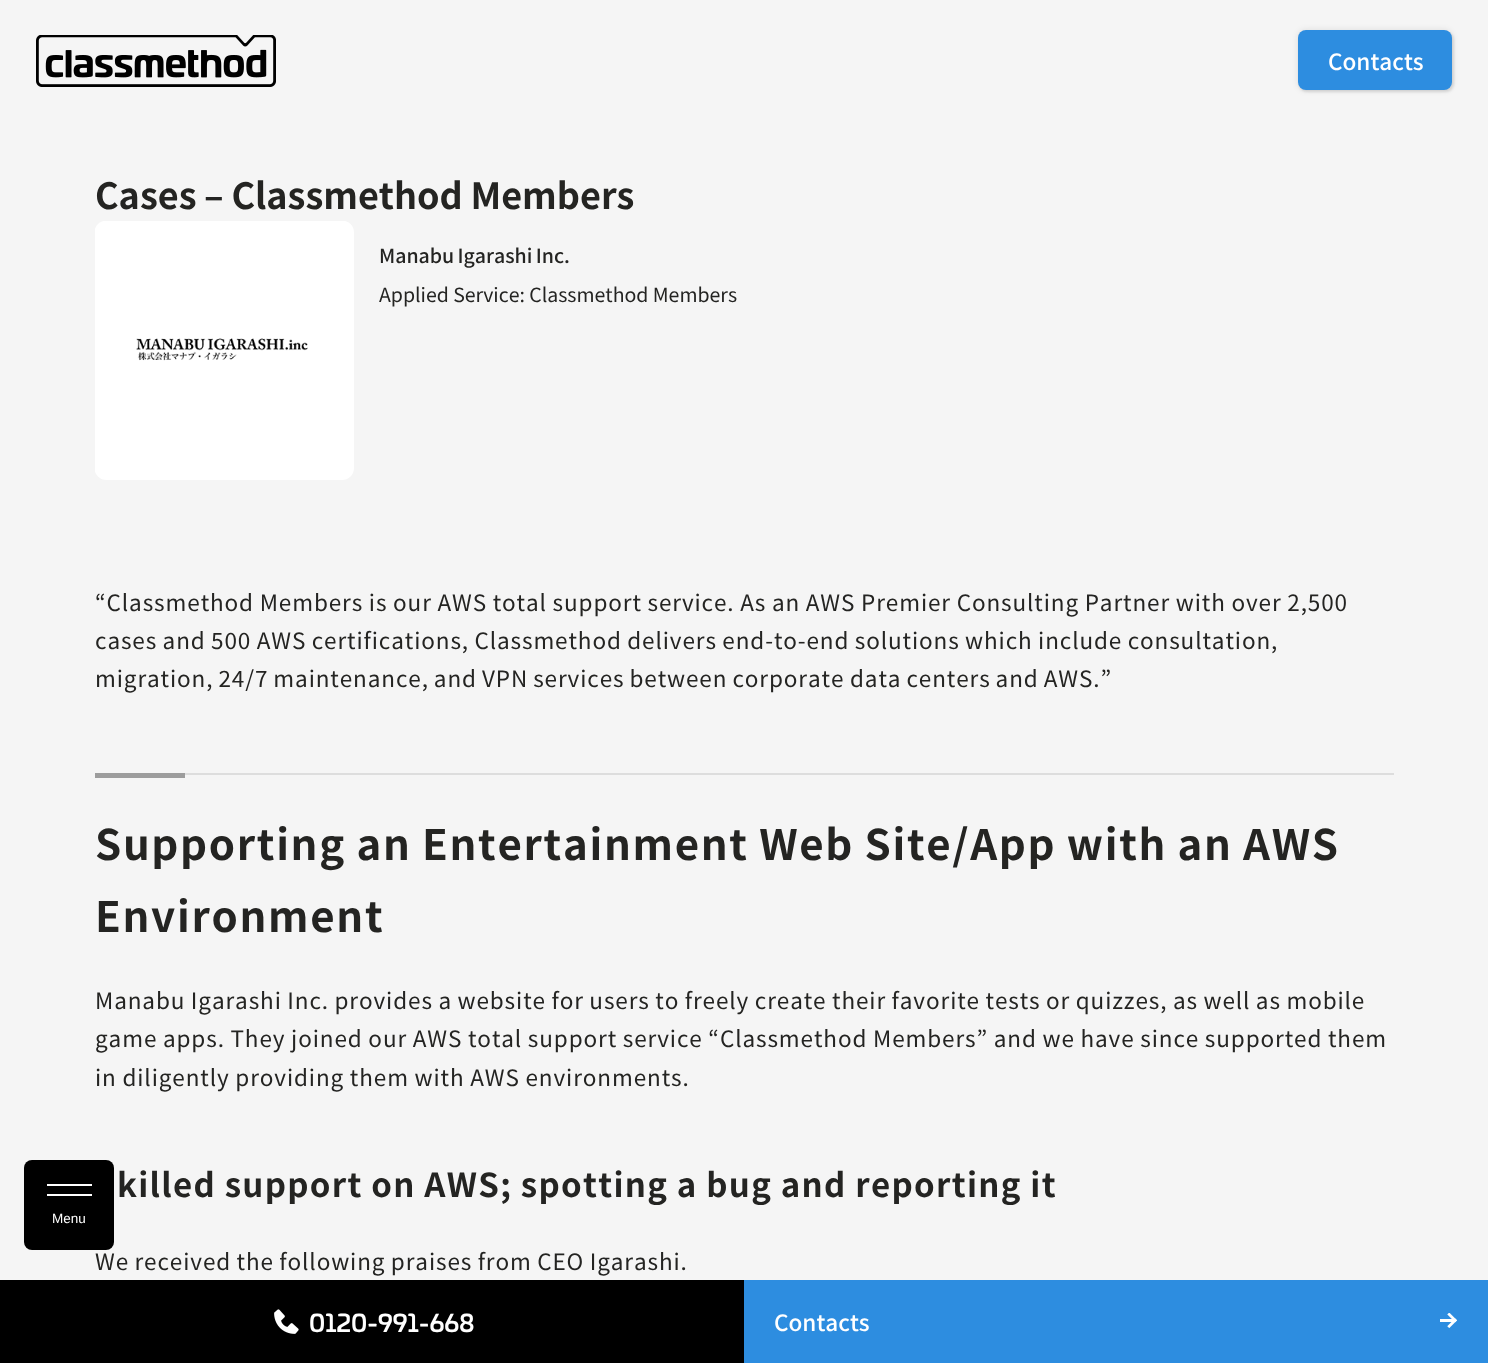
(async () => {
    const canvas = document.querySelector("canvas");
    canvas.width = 1488;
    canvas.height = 1363;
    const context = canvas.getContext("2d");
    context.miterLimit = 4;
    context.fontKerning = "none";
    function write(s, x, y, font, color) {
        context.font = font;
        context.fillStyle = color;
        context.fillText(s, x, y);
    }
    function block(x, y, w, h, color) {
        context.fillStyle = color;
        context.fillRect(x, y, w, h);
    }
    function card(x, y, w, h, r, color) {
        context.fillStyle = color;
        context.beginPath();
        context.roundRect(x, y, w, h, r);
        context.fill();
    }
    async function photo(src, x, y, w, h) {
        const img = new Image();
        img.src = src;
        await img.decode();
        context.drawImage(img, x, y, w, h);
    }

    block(0, 0, 1488, 1363, "rgb(245, 245, 245)");
    await photo("media/1.png", 36, 35, 240, 52);
    context.fillStyle = "rgba(0, 0, 0, 0.1)";
    context.filter = "blur(3px)";
    context.beginPath();
    context.roundRect(1298, 30, 154, 60, 8);
    context.fill();
    context.filter = "none";
    context.filter = "blur(1px)";
    context.beginPath();
    context.roundRect(1299, 32, 155, 60, 8);
    context.fill();
    context.filter = "none";
    card(1298, 30, 154, 60, 8, "rgb(45, 141, 224)");
    write("Contacts", 1328, 70, "500 22.5px Noto Sans JP", "rgb(255, 255, 255)");
    card(24, 1160, 90, 90, 8, "rgb(0, 0, 0)");
    block(47, 1184, 45, 2, "rgb(255, 255, 255)");
    block(47, 1194, 45, 2, "rgb(255, 255, 255)");
    write("Menu", 52, 1223, "13.5px Liberation Sans", "rgb(255, 255, 255)");
    context.wordSpacing = "-0.5px";
    write("Cases – Classmethod Members", 95, 209, "bold 36px Noto Sans JP", "rgb(36, 36, 34)");
    await photo("media/2.png", 95, 221, 259, 259);
    context.wordSpacing = "-1px";
    write("Manabu Igarashi Inc.", 379, 263, "500 19.5px Noto Sans JP", "rgb(36, 36, 34)");
    context.wordSpacing = "0px";
    write("Applied Service: Classmethod Members", 379, 302, "19.5px Noto Sans JP", "rgb(36, 36, 34)");
    context.letterSpacing = "0.9px";
    context.wordSpacing = "-0.25px";
    write("“Classmethod Members is our AWS total support service. As an AWS Premier Consulting Partner with over 2,500", 95, 611, "22.5px Noto Sans JP", "rgb(36, 36, 34)");
    context.wordSpacing = "-0.5px";
    write("cases and 500 AWS certifications, Classmethod delivers end-to-end solutions which include consultation,", 95, 649, "22.5px Noto Sans JP", "rgb(36, 36, 34)");
    context.wordSpacing = "-0.9px";
    write("migration, 24/7 maintenance, and VPN services between corporate", 95, 687, "22.5px Noto Sans JP", "rgb(36, 36, 34)");
    write("data centers and AWS.”", 850, 687, "22.5px Noto Sans JP", "rgb(36, 36, 34)");
    block(95, 773, 90, 5, "rgb(157, 157, 157)");
    block(185, 773, 1209, 2, "rgb(221, 221, 221)");
    context.letterSpacing = "1.68px";
    context.wordSpacing = "-0.75px";
    write("Supporting an Entertainment Web Site/App with an AWS", 95, 860, "bold 42px Noto Sans JP", "rgb(36, 36, 34)");
    context.wordSpacing = "0px";
    write("Environment", 95, 932, "bold 42px Noto Sans JP", "rgb(36, 36, 34)");
    context.letterSpacing = "0.9px";
    context.wordSpacing = "-0.4px";
    write("Manabu Igarashi Inc. provides a website for users to freely create", 95, 1009, "22.5px Noto Sans JP", "rgb(36, 36, 34)");
    write("their favorite tests or quizzes, as well as mobile", 832, 1009, "22.5px Noto Sans JP", "rgb(36, 36, 34)");
    context.wordSpacing = "-0.25px";
    write("game apps. They joined our AWS total support service “Classmethod Members” and we have since supported them", 95, 1047, "22.5px Noto Sans JP", "rgb(36, 36, 34)");
    write("in diligently providing them with AWS environments.", 95, 1086, "22.5px Noto Sans JP", "rgb(36, 36, 34)");
    context.letterSpacing = "1.32px";
    write("killed support on AWS; spotting a bug and reporting it", 117, 1197, "bold 33px Noto Sans JP", "rgb(36, 36, 34)");
    context.letterSpacing = "0.9px";
    context.wordSpacing = "-0.5px";
    write("We received the following praises from CEO Igarashi.", 95, 1270, "22.5px Noto Sans JP", "rgb(36, 36, 34)");
    block(0, 1280, 744, 83, "rgb(0, 0, 0)");
    await photo("media/3.png", 274, 1309, 25, 25);
    context.letterSpacing = "0px";
    context.wordSpacing = "0px";
    write("0120-991-668", 309, 1332, "500 24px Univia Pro", "rgb(255, 255, 255)");
    block(744, 1280, 744, 83, "rgb(45, 141, 224)");
    write("Contacts", 774, 1331, "500 22.5px Noto Sans JP", "rgb(255, 255, 255)");
    await photo("media/4.png", 1440, 1313, 17, 15);
})();
